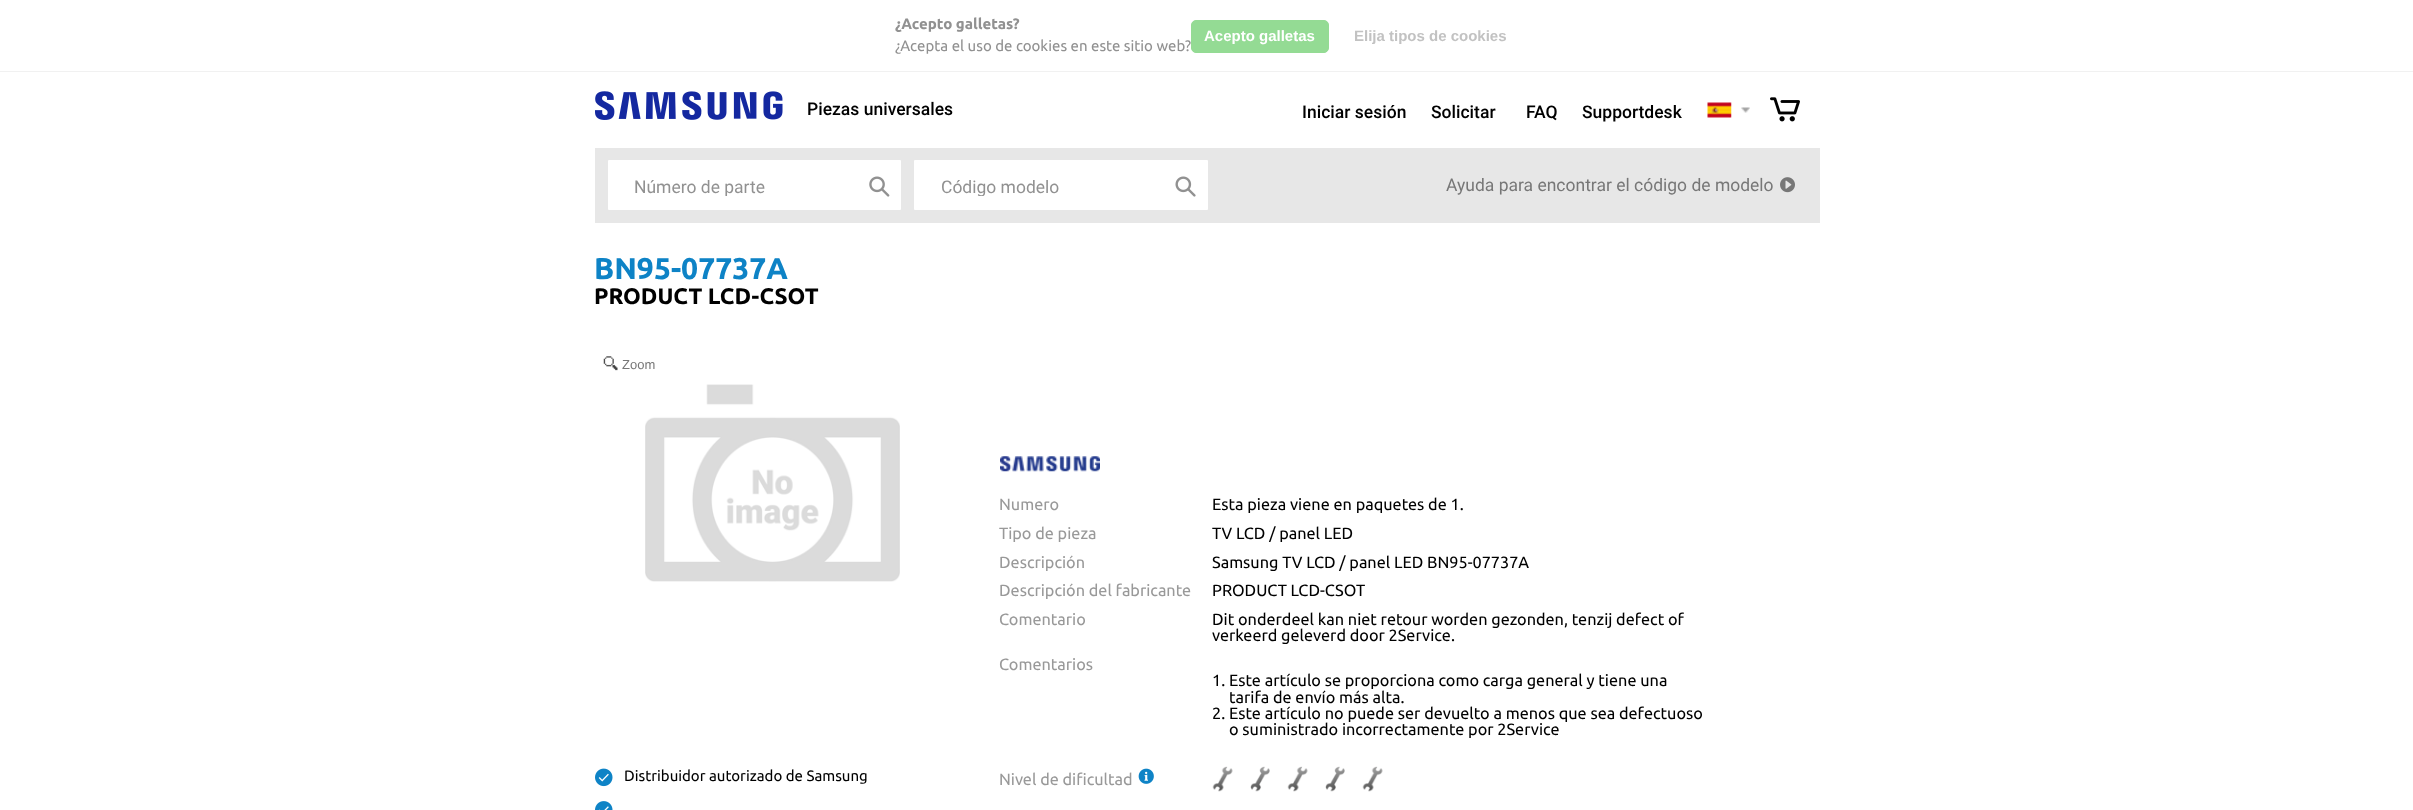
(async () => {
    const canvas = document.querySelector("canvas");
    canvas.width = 2413;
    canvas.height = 810;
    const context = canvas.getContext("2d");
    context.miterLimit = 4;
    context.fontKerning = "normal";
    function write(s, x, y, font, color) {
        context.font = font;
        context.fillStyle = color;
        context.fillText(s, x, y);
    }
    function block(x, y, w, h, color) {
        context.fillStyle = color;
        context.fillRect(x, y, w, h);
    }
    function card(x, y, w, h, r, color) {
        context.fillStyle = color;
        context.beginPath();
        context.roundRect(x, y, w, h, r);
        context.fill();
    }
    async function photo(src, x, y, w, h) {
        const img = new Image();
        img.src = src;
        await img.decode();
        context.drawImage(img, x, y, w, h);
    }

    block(0, 0, 2413, 810, "rgb(255, 255, 255)");
    block(0, 71, 2413, 1, "rgb(241, 241, 241)");
    write("¿Acepto galletas?", 895, 29, "bold 15px Ubuntu", "rgb(145, 145, 145)");
    write("¿Acepta el uso de cookies en este sitio web?", 895, 51, "15px Ubuntu", "rgb(145, 145, 145)");
    context.fillStyle = "rgb(148, 219, 148)";
    context.beginPath();
    context.roundRect(1191.5, 20.5, 137, 32, 4.5);
    context.fill();
    context.strokeStyle = "rgb(148, 219, 148)";
    context.stroke();
    write("Acepto galletas", 1204, 41, "bold 15px Liberation Sans", "rgb(255, 255, 255)");
    write("Elija tipos de cookies", 1354, 41, "bold 15px Liberation Sans", "rgb(194, 194, 194)");
    await photo("media/1.png", 595, 91, 188, 29);
    write("Piezas universales", 807, 115, "500 17.5px Roboto", "rgb(0, 0, 0)");
    write("Iniciar sesión", 1302, 118, "500 17.5px Roboto", "rgb(0, 0, 0)");
    write("Solicitar", 1431, 118, "500 17.5px Roboto", "rgb(0, 0, 0)");
    write("FAQ", 1526, 118, "500 17.5px Roboto", "rgb(0, 0, 0)");
    write("Supportdesk", 1582, 118, "500 17.5px Roboto", "rgb(0, 0, 0)");
    await photo("media/2.png", 1707, 102, 25, 16);
    await photo("media/3.png", 1741, 107, 9, 6);
    await photo("media/4.png", 1770, 97, 30, 25);
    block(595, 148, 1225, 75, "rgb(231, 231, 231)");
    card(608, 160, 293, 50, 1, "rgb(255, 255, 255)");
    context.save();
    context.beginPath();
    context.rect(610, 176, 213, 20);
    context.clip();
    write("Número de parte", 634, 193, "17.5px Roboto", "rgb(145, 145, 145)");
    context.restore();
    await photo("media/5.png", 869, 176, 21, 21);
    card(914, 160, 294, 50, 1, "rgb(255, 255, 255)");
    context.save();
    context.beginPath();
    context.rect(916, 176, 213, 20);
    context.clip();
    write("Código modelo", 941, 193, "17.5px Roboto", "rgb(145, 145, 145)");
    context.restore();
    await photo("media/6.png", 1175, 176, 21, 21);
    write("Ayuda para encontrar el código de modelo", 1446, 191, "17.5px Roboto", "rgb(119, 119, 119)");
    await photo("media/7.png", 1780, 177, 15, 16);
    write("BN95-07737A", 594, 279, "bold 30px Ubuntu", "rgb(14, 131, 198)");
    write("PRODUCT LCD-CSOT", 594, 304, "bold 22.5px Ubuntu", "rgb(0, 0, 0)");
    await photo("media/8.png", 603, 356, 15, 15);
    write("Zoom", 622, 369, "13px Liberation Sans", "rgb(119, 119, 119)");
    await photo("media/9.png", 645, 384, 255, 198);
    await photo("media/10.png", 595, 768, 18, 19);
    write("Distribuidor autorizado de Samsung", 624, 781, "15px Ubuntu", "rgb(0, 0, 0)");
    await photo("media/11.png", 595, 801, 18, 9);
    await photo("media/12.png", 1000, 456, 100, 16);
    write("Numero", 999, 510, "16.25px Ubuntu", "rgb(153, 153, 153)");
    write("Esta pieza viene en paquetes de 1.", 1212, 510, "16.25px Ubuntu", "rgb(0, 0, 0)");
    write("Tipo de pieza", 999, 539, "16.25px Ubuntu", "rgb(153, 153, 153)");
    write("TV LCD / panel LED", 1212, 539, "16.25px Ubuntu", "rgb(0, 0, 0)");
    write("Descripción", 999, 568, "16.25px Ubuntu", "rgb(153, 153, 153)");
    write("Samsung TV LCD / panel LED BN95-07737A", 1212, 568, "16.25px Ubuntu", "rgb(0, 0, 0)");
    write("Descripción del fabricante", 999, 596, "16.25px Ubuntu", "rgb(153, 153, 153)");
    write("PRODUCT LCD-CSOT", 1212, 596, "16.25px Ubuntu", "rgb(0, 0, 0)");
    write("Comentario", 999, 625, "16.25px Ubuntu", "rgb(153, 153, 153)");
    write("Dit onderdeel kan niet retour worden gezonden, tenzij defect of", 1212, 625, "16.25px Ubuntu", "rgb(0, 0, 0)");
    write("verkeerd geleverd door 2Service.", 1212, 641, "16.25px Ubuntu", "rgb(0, 0, 0)");
    write("Comentarios", 999, 670, "16.25px Ubuntu", "rgb(153, 153, 153)");
    write("1. Este artículo se proporciona como carga general y tiene una", 1212, 686, "16.25px Ubuntu", "rgb(0, 0, 0)");
    write("tarifa de envío más alta.", 1229, 703, "16.25px Ubuntu", "rgb(0, 0, 0)");
    write("2. Este artículo no puede ser devuelto a menos que sea defectuoso", 1212, 719, "16.25px Ubuntu", "rgb(0, 0, 0)");
    write("o suministrado incorrectamente por 2Service", 1229, 735, "16.25px Ubuntu", "rgb(0, 0, 0)");
    write("Nivel de dificultad", 999, 785, "16.25px Ubuntu", "rgb(153, 153, 153)");
    await photo("media/13.png", 1138, 768, 16, 16);
    await photo("media/14.png", 1212, 766, 21, 26);
    await photo("media/15.png", 1250, 766, 20, 26);
    await photo("media/16.png", 1287, 766, 21, 26);
    await photo("media/15.png", 1325, 766, 20, 26);
    await photo("media/14.png", 1362, 766, 21, 26);
})();
